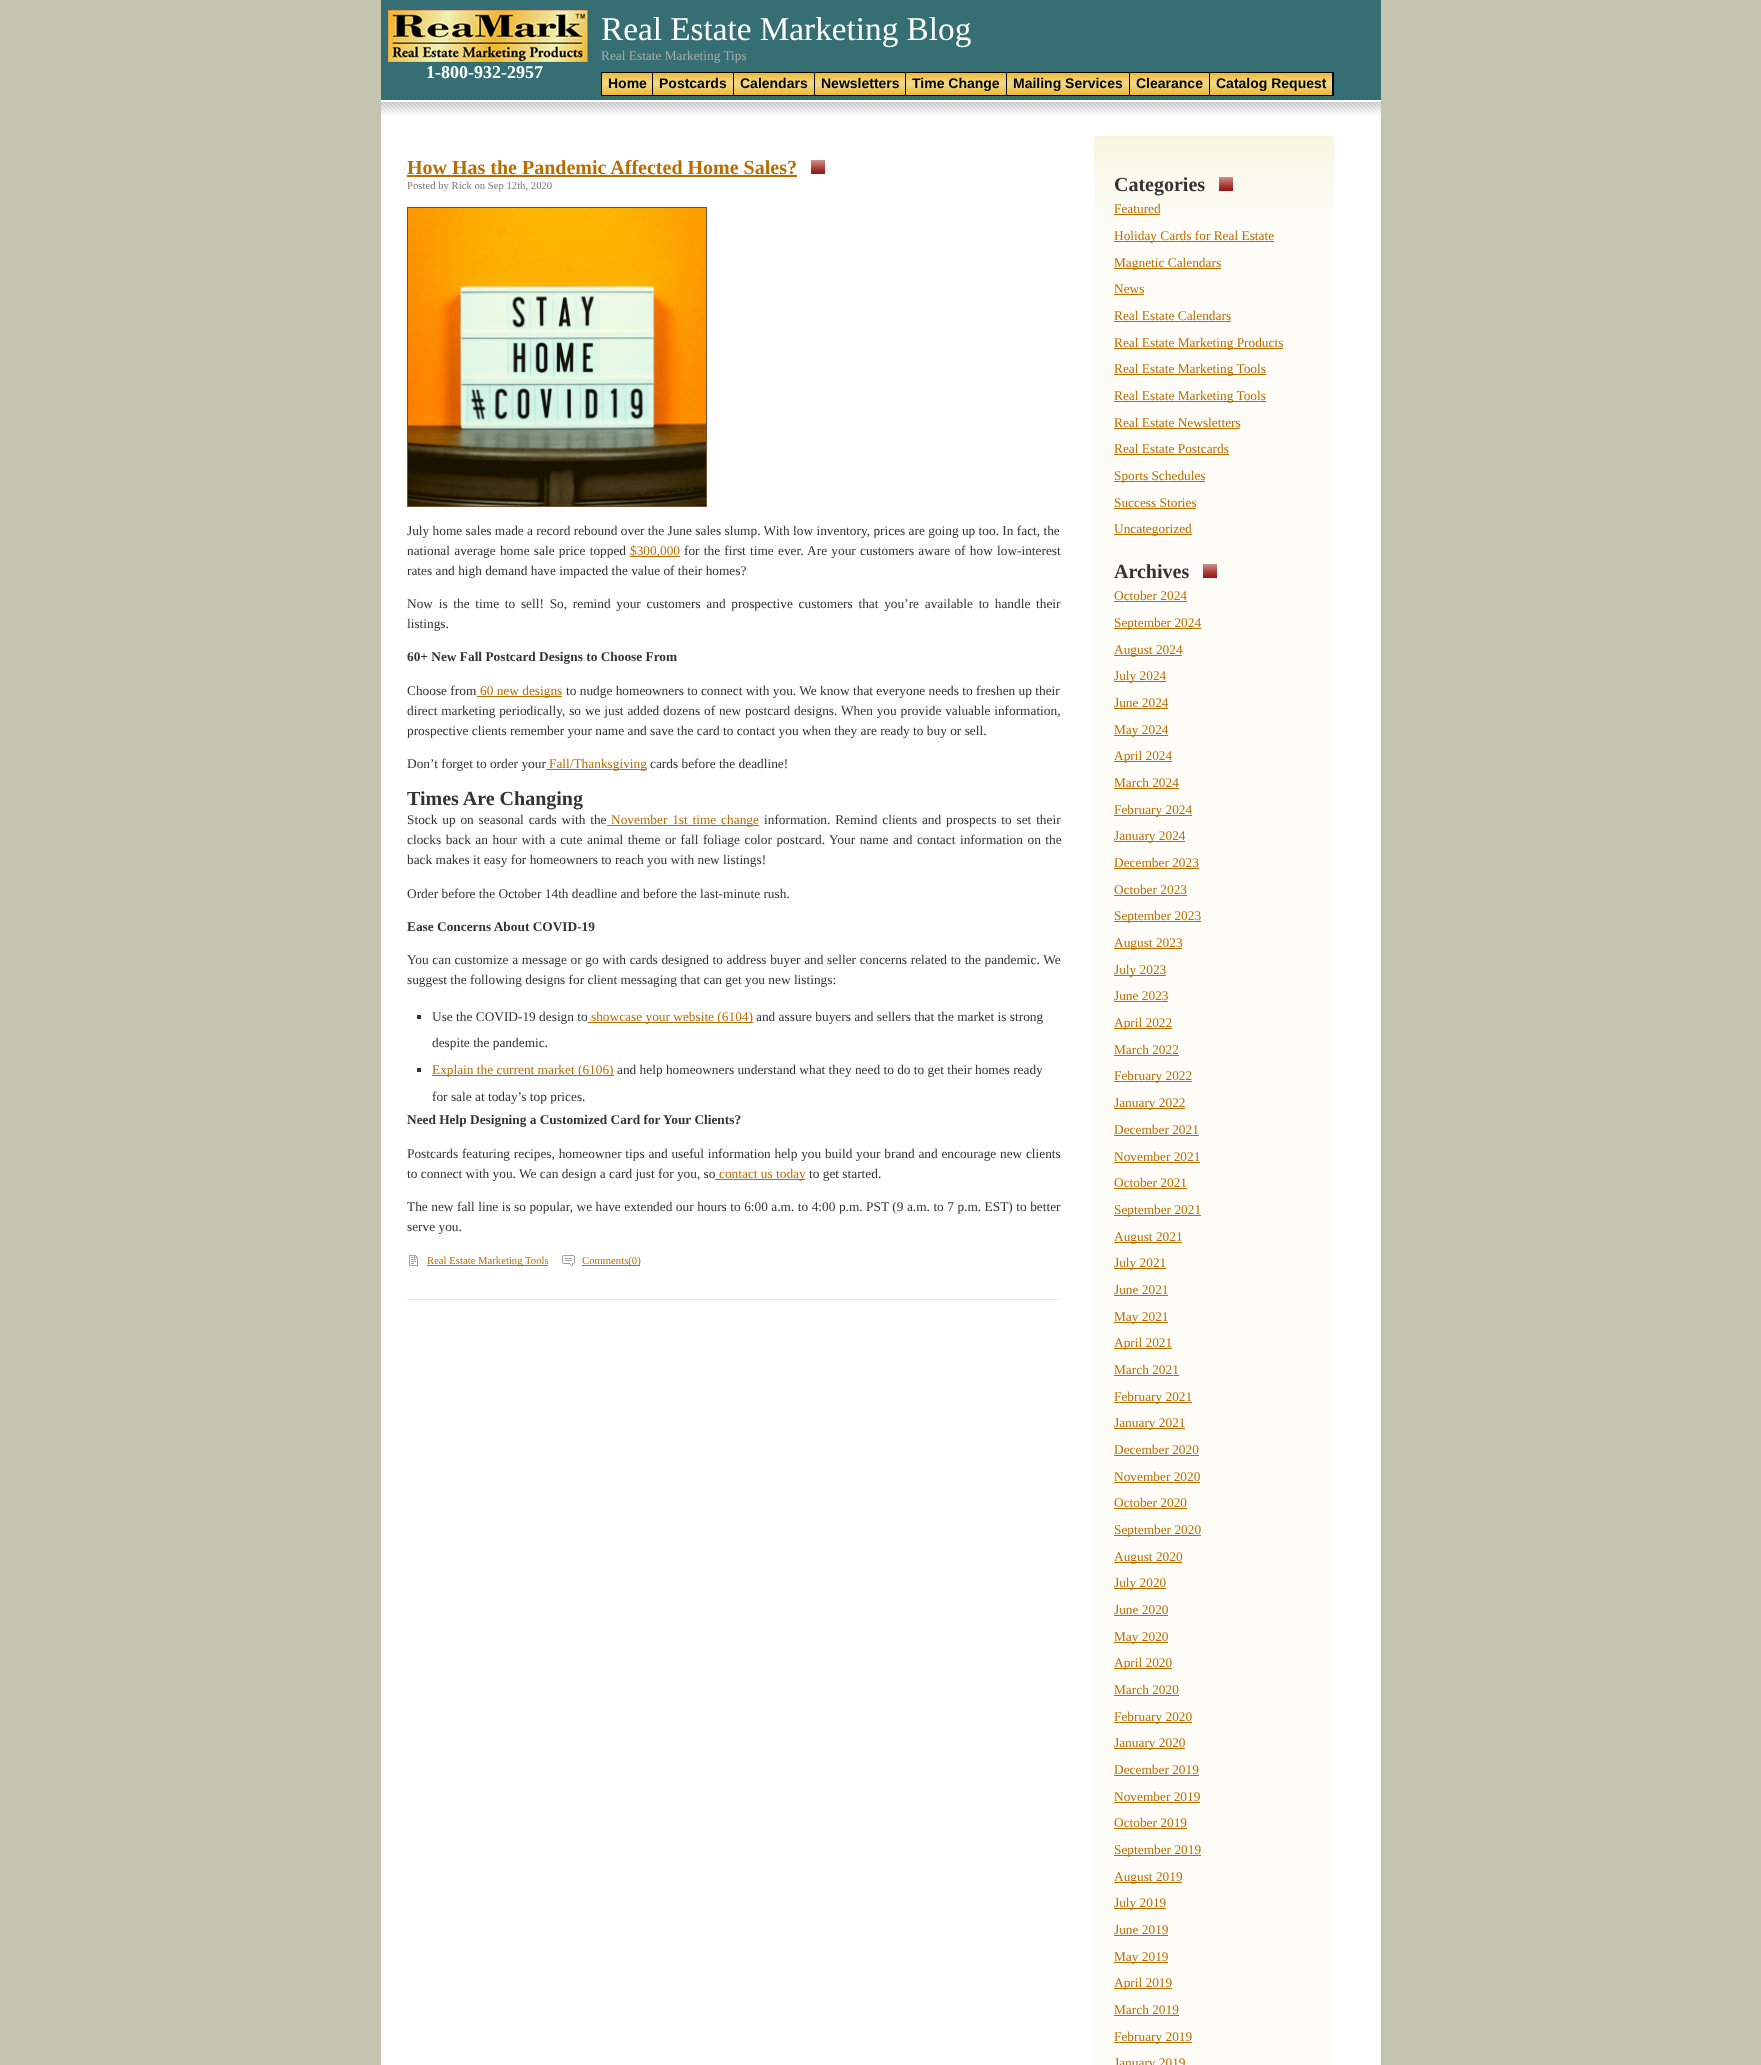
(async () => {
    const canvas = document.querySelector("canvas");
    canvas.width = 1761;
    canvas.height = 2065;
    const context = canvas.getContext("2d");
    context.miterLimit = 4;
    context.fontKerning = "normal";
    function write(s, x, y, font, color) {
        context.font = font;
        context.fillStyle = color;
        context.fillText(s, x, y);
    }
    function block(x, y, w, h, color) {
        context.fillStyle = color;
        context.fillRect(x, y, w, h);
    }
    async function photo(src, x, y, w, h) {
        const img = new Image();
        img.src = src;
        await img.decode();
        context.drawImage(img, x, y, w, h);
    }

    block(0, 0, 1761, 2065, "rgb(195, 197, 176)");
    block(381, 100, 1000, 1965, "rgb(255, 255, 255)");
    block(381, 0, 1000, 100, "rgb(53, 111, 115)");
    await photo("media/1.png", 388, 10, 200, 52);
    write("1-800-932-2957", 426, 78, "bold 18px Liberation Serif", "rgb(255, 255, 255)");
    write("Real Estate Marketing Blog", 601, 40, "33.25px Liberation Serif", "rgb(255, 255, 255)");
    write("Real Estate Marketing Tips", 601, 60, "13.35px Liberation Serif", "rgb(170, 170, 170)");
    await photo("media/2.png", 602, 73, 730, 22);
    context.strokeStyle = "rgb(0, 0, 0)";
    context.strokeRect(601.5, 72.5, 732, 23);
    block(652, 73, 1, 22, "rgb(0, 0, 0)");
    write("Home", 608, 88, "bold 14px Liberation Sans", "rgb(0, 0, 0)");
    block(733, 73, 1, 22, "rgb(0, 0, 0)");
    write("Postcards", 659, 88, "bold 14px Liberation Sans", "rgb(0, 0, 0)");
    block(814, 73, 1, 22, "rgb(0, 0, 0)");
    write("Calendars", 740, 88, "bold 14px Liberation Sans", "rgb(0, 0, 0)");
    block(905, 73, 1, 22, "rgb(0, 0, 0)");
    write("Newsletters", 821, 88, "bold 14px Liberation Sans", "rgb(0, 0, 0)");
    block(1006, 73, 1, 22, "rgb(0, 0, 0)");
    write("Time Change", 912, 88, "bold 14px Liberation Sans", "rgb(0, 0, 0)");
    block(1129, 73, 1, 22, "rgb(0, 0, 0)");
    write("Mailing Services", 1013, 88, "bold 14px Liberation Sans", "rgb(0, 0, 0)");
    block(1209, 73, 1, 22, "rgb(0, 0, 0)");
    write("Clearance", 1136, 88, "bold 14px Liberation Sans", "rgb(0, 0, 0)");
    block(1332, 73, 1, 22, "rgb(0, 0, 0)");
    write("Catalog Request", 1216, 88, "bold 14px Liberation Sans", "rgb(0, 0, 0)");
    await photo("media/3.png", 381, 102, 1000, 13);
    write("How Has the Pandemic Affected Home Sales?", 407, 174, "bold 20px Liberation Serif", "rgb(185, 109, 0)");
    block(407, 175, 390, 2, "rgb(185, 109, 0)");
    await photo("media/4.png", 811, 160, 14, 14);
    write("Posted by Rick on Sep 12th, 2020", 407, 189, "10.7px Liberation Serif", "rgb(120, 120, 120)");
    context.strokeStyle = "rgb(111, 82, 48)";
    context.strokeRect(407.5, 207.5, 299, 299);
    await photo("media/5.png", 408, 208, 298, 298);
    write("July home sales made a record rebound over the June sales slump. With low inventory, prices are going up too. In fact, the", 407, 535, "13.35px Liberation Serif", "rgb(51, 51, 51)");
    context.wordSpacing = "0.9px";
    write("national average home sale price topped", 407, 555, "13.35px Liberation Serif", "rgb(51, 51, 51)");
    block(630, 556, 50, 1, "rgb(185, 109, 0)");
    context.wordSpacing = "0px";
    write("$300,000", 630, 555, "13.35px Liberation Serif", "rgb(185, 109, 0)");
    context.wordSpacing = "0.9px";
    write("for the first time ever. Are your customers aware of how low-interest", 684, 555, "13.35px Liberation Serif", "rgb(51, 51, 51)");
    context.wordSpacing = "0px";
    write("rates and high demand have impacted the value of their homes?", 407, 575, "13.35px Liberation Serif", "rgb(51, 51, 51)");
    context.wordSpacing = "2.4px";
    write("Now is the time to sell! So, remind your customers and prospective customers that you’re available to handle their", 407, 608, "13.35px Liberation Serif", "rgb(51, 51, 51)");
    context.wordSpacing = "0px";
    write("listings.", 407, 628, "13.35px Liberation Serif", "rgb(51, 51, 51)");
    write("60+ New Fall Postcard Designs to Choose From", 407, 661, "bold 13.35px Liberation Serif", "rgb(51, 51, 51)");
    write("Choose from", 407, 695, "13.35px Liberation Serif", "rgb(51, 51, 51)");
    block(477, 696, 85, 1, "rgb(185, 109, 0)");
    write("60 new designs", 480, 695, "13.35px Liberation Serif", "rgb(185, 109, 0)");
    write("to nudge homeowners to connect with you. We know that everyone needs to freshen up their", 566, 695, "13.35px Liberation Serif", "rgb(51, 51, 51)");
    context.wordSpacing = "0.5px";
    write("direct marketing periodically, so we just added dozens of new postcard designs. When you provide valuable information,", 407, 715, "13.35px Liberation Serif", "rgb(51, 51, 51)");
    context.wordSpacing = "0px";
    write("prospective clients remember your name and save the card to contact you when they are ready to buy or sell.", 407, 735, "13.35px Liberation Serif", "rgb(51, 51, 51)");
    write("Don’t forget to order your", 407, 768, "13.35px Liberation Serif", "rgb(51, 51, 51)");
    block(546, 769, 101, 1, "rgb(185, 109, 0)");
    write("Fall/Thanksgiving", 549, 768, "13.35px Liberation Serif", "rgb(185, 109, 0)");
    write("cards before the deadline!", 650, 768, "13.35px Liberation Serif", "rgb(51, 51, 51)");
    write("Times Are Changing", 407, 805, "bold 20px Liberation Serif", "rgb(51, 51, 51)");
    context.wordSpacing = "1.5px";
    write("Stock up on seasonal cards with the", 407, 824, "13.35px Liberation Serif", "rgb(51, 51, 51)");
    block(607, 825, 152, 1, "rgb(185, 109, 0)");
    write("November 1st time change", 611, 824, "13.35px Liberation Serif", "rgb(185, 109, 0)");
    write("information. Remind clients and prospects to set their", 764, 824, "13.35px Liberation Serif", "rgb(51, 51, 51)");
    context.wordSpacing = "1.2px";
    write("clocks back an hour with a cute animal theme or fall foliage color postcard. Your name and contact information on the", 407, 844, "13.35px Liberation Serif", "rgb(51, 51, 51)");
    context.wordSpacing = "0px";
    write("back makes it easy for homeowners to reach you with new listings!", 407, 864, "13.35px Liberation Serif", "rgb(51, 51, 51)");
    write("Order before the October 14th deadline and before the last-minute rush.", 407, 898, "13.35px Liberation Serif", "rgb(51, 51, 51)");
    write("Ease Concerns About COVID-19", 407, 931, "bold 13.35px Liberation Serif", "rgb(51, 51, 51)");
    context.wordSpacing = "0.3px";
    write("You can customize a message or go with cards designed to address buyer and seller concerns related to the pandemic. We", 407, 964, "13.35px Liberation Serif", "rgb(51, 51, 51)");
    context.wordSpacing = "0px";
    write("suggest the following designs for client messaging that can get you new listings:", 407, 984, "13.35px Liberation Serif", "rgb(51, 51, 51)");
    block(417, 1015, 4, 4, "rgb(51, 51, 51)");
    write("Use the COVID-19 design to", 432, 1021, "13.35px Liberation Serif", "rgb(51, 51, 51)");
    block(588, 1022, 165, 1, "rgb(185, 109, 0)");
    write("showcase your website (6104)", 591, 1021, "13.35px Liberation Serif", "rgb(185, 109, 0)");
    write("and assure buyers and sellers that the market is strong", 756, 1021, "13.35px Liberation Serif", "rgb(51, 51, 51)");
    write("despite the pandemic.", 432, 1047, "13.35px Liberation Serif", "rgb(51, 51, 51)");
    block(417, 1068, 4, 4, "rgb(51, 51, 51)");
    block(432, 1075, 182, 1, "rgb(185, 109, 0)");
    write("Explain the current market (6106)", 432, 1074, "13.35px Liberation Serif", "rgb(185, 109, 0)");
    write("and help homeowners understand what they need to do to get their homes ready", 617, 1074, "13.35px Liberation Serif", "rgb(51, 51, 51)");
    write("for sale at today’s top prices.", 432, 1101, "13.35px Liberation Serif", "rgb(51, 51, 51)");
    write("Need Help Designing a Customized Card for Your Clients?", 407, 1124, "bold 13.35px Liberation Serif", "rgb(51, 51, 51)");
    context.wordSpacing = "0.4px";
    write("Postcards featuring recipes, homeowner tips and useful information help you build your brand and encourage new clients", 407, 1158, "13.35px Liberation Serif", "rgb(51, 51, 51)");
    context.wordSpacing = "0px";
    write("to connect with you. We can design a card just for you, so", 407, 1178, "13.35px Liberation Serif", "rgb(51, 51, 51)");
    block(715, 1179, 90, 1, "rgb(185, 109, 0)");
    write("contact us today", 719, 1178, "13.35px Liberation Serif", "rgb(185, 109, 0)");
    write("to get started.", 809, 1178, "13.35px Liberation Serif", "rgb(51, 51, 51)");
    context.wordSpacing = "0.15px";
    write("The new fall line is so popular, we have extended our hours to 6:00 a.m. to 4:00 p.m. PST (9 a.m. to 7 p.m. EST) to better", 407, 1211, "13.35px Liberation Serif", "rgb(51, 51, 51)");
    context.wordSpacing = "0px";
    write("serve you.", 407, 1231, "13.35px Liberation Serif", "rgb(51, 51, 51)");
    await photo("media/6.png", 409, 1255, 9, 11);
    block(427, 1265, 121, 1, "rgb(185, 109, 0)");
    write("Real Estate Marketing Tools", 427, 1264, "10.7px Liberation Serif", "rgb(185, 109, 0)");
    await photo("media/7.png", 562, 1255, 13, 11);
    block(582, 1265, 58, 1, "rgb(185, 109, 0)");
    write("Comments(0)", 582, 1264, "10.7px Liberation Serif", "rgb(185, 109, 0)");
    block(407, 1299, 654, 1, "rgb(234, 234, 234)");
    block(1094, 208, 240, 1857, "rgb(253, 252, 246)");
    await photo("media/8.png", 1094, 136, 240, 72);
    write("Categories", 1114, 191, "bold 20px Liberation Serif", "rgb(51, 51, 51)");
    await photo("media/4.png", 1219, 177, 14, 14);
    write("Featured", 1114, 213, "13.35px Liberation Serif", "rgb(185, 109, 0)");
    block(1114, 214, 46, 1, "rgb(185, 109, 0)");
    block(1114, 241, 160, 1, "rgb(185, 109, 0)");
    write("Holiday Cards for Real Estate", 1114, 240, "13.35px Liberation Serif", "rgb(185, 109, 0)");
    block(1114, 268, 107, 1, "rgb(185, 109, 0)");
    write("Magnetic Calendars", 1114, 267, "13.35px Liberation Serif", "rgb(185, 109, 0)");
    write("News", 1114, 293, "13.35px Liberation Serif", "rgb(185, 109, 0)");
    block(1114, 294, 30, 1, "rgb(185, 109, 0)");
    write("Real Estate Calendars", 1114, 320, "13.35px Liberation Serif", "rgb(185, 109, 0)");
    block(1114, 321, 117, 1, "rgb(185, 109, 0)");
    block(1114, 348, 169, 1, "rgb(185, 109, 0)");
    write("Real Estate Marketing Products", 1114, 347, "13.35px Liberation Serif", "rgb(185, 109, 0)");
    block(1114, 374, 152, 1, "rgb(185, 109, 0)");
    write("Real Estate Marketing Tools", 1114, 373, "13.35px Liberation Serif", "rgb(185, 109, 0)");
    block(1114, 401, 152, 1, "rgb(185, 109, 0)");
    write("Real Estate Marketing Tools", 1114, 400, "13.35px Liberation Serif", "rgb(185, 109, 0)");
    write("Real Estate Newsletters", 1114, 427, "13.35px Liberation Serif", "rgb(185, 109, 0)");
    block(1114, 428, 126, 1, "rgb(185, 109, 0)");
    write("Real Estate Postcards", 1114, 453, "13.35px Liberation Serif", "rgb(185, 109, 0)");
    block(1114, 454, 115, 1, "rgb(185, 109, 0)");
    block(1114, 481, 91, 1, "rgb(185, 109, 0)");
    write("Sports Schedules", 1114, 480, "13.35px Liberation Serif", "rgb(185, 109, 0)");
    write("Success Stories", 1114, 507, "13.35px Liberation Serif", "rgb(185, 109, 0)");
    block(1114, 508, 82, 1, "rgb(185, 109, 0)");
    block(1114, 534, 78, 1, "rgb(185, 109, 0)");
    write("Uncategorized", 1114, 533, "13.35px Liberation Serif", "rgb(185, 109, 0)");
    write("Archives", 1114, 578, "bold 20px Liberation Serif", "rgb(51, 51, 51)");
    await photo("media/4.png", 1203, 564, 14, 14);
    write("October 2024", 1114, 600, "13.35px Liberation Serif", "rgb(185, 109, 0)");
    block(1114, 601, 73, 1, "rgb(185, 109, 0)");
    block(1114, 628, 87, 1, "rgb(185, 109, 0)");
    write("September 2024", 1114, 627, "13.35px Liberation Serif", "rgb(185, 109, 0)");
    block(1114, 655, 68, 1, "rgb(185, 109, 0)");
    write("August 2024", 1114, 654, "13.35px Liberation Serif", "rgb(185, 109, 0)");
    block(1114, 681, 52, 1, "rgb(185, 109, 0)");
    write("July 2024", 1114, 680, "13.35px Liberation Serif", "rgb(185, 109, 0)");
    write("June 2024", 1114, 707, "13.35px Liberation Serif", "rgb(185, 109, 0)");
    block(1114, 708, 54, 1, "rgb(185, 109, 0)");
    block(1114, 735, 54, 1, "rgb(185, 109, 0)");
    write("May 2024", 1114, 734, "13.35px Liberation Serif", "rgb(185, 109, 0)");
    block(1114, 761, 58, 1, "rgb(185, 109, 0)");
    write("April 2024", 1114, 760, "13.35px Liberation Serif", "rgb(185, 109, 0)");
    write("March 2024", 1114, 787, "13.35px Liberation Serif", "rgb(185, 109, 0)");
    block(1114, 788, 65, 1, "rgb(185, 109, 0)");
    block(1114, 815, 78, 1, "rgb(185, 109, 0)");
    write("February 2024", 1114, 814, "13.35px Liberation Serif", "rgb(185, 109, 0)");
    block(1114, 841, 71, 1, "rgb(185, 109, 0)");
    write("January 2024", 1114, 840, "13.35px Liberation Serif", "rgb(185, 109, 0)");
    write("December 2023", 1114, 867, "13.35px Liberation Serif", "rgb(185, 109, 0)");
    block(1114, 868, 85, 1, "rgb(185, 109, 0)");
    write("October 2023", 1114, 894, "13.35px Liberation Serif", "rgb(185, 109, 0)");
    block(1114, 895, 73, 1, "rgb(185, 109, 0)");
    block(1114, 921, 87, 1, "rgb(185, 109, 0)");
    write("September 2023", 1114, 920, "13.35px Liberation Serif", "rgb(185, 109, 0)");
    block(1114, 948, 68, 1, "rgb(185, 109, 0)");
    write("August 2023", 1114, 947, "13.35px Liberation Serif", "rgb(185, 109, 0)");
    block(1114, 975, 52, 1, "rgb(185, 109, 0)");
    write("July 2023", 1114, 974, "13.35px Liberation Serif", "rgb(185, 109, 0)");
    write("June 2023", 1114, 1000, "13.35px Liberation Serif", "rgb(185, 109, 0)");
    block(1114, 1001, 54, 1, "rgb(185, 109, 0)");
    block(1114, 1028, 58, 1, "rgb(185, 109, 0)");
    write("April 2022", 1114, 1027, "13.35px Liberation Serif", "rgb(185, 109, 0)");
    write("March 2022", 1114, 1054, "13.35px Liberation Serif", "rgb(185, 109, 0)");
    block(1114, 1055, 65, 1, "rgb(185, 109, 0)");
    block(1114, 1081, 78, 1, "rgb(185, 109, 0)");
    write("February 2022", 1114, 1080, "13.35px Liberation Serif", "rgb(185, 109, 0)");
    block(1114, 1108, 71, 1, "rgb(185, 109, 0)");
    write("January 2022", 1114, 1107, "13.35px Liberation Serif", "rgb(185, 109, 0)");
    write("December 2021", 1114, 1134, "13.35px Liberation Serif", "rgb(185, 109, 0)");
    block(1114, 1135, 85, 1, "rgb(185, 109, 0)");
    write("November 2021", 1114, 1161, "13.35px Liberation Serif", "rgb(185, 109, 0)");
    block(1114, 1162, 86, 1, "rgb(185, 109, 0)");
    write("October 2021", 1114, 1187, "13.35px Liberation Serif", "rgb(185, 109, 0)");
    block(1114, 1188, 73, 1, "rgb(185, 109, 0)");
    block(1114, 1215, 87, 1, "rgb(185, 109, 0)");
    write("September 2021", 1114, 1214, "13.35px Liberation Serif", "rgb(185, 109, 0)");
    block(1114, 1242, 68, 1, "rgb(185, 109, 0)");
    write("August 2021", 1114, 1241, "13.35px Liberation Serif", "rgb(185, 109, 0)");
    block(1114, 1268, 52, 1, "rgb(185, 109, 0)");
    write("July 2021", 1114, 1267, "13.35px Liberation Serif", "rgb(185, 109, 0)");
    write("June 2021", 1114, 1294, "13.35px Liberation Serif", "rgb(185, 109, 0)");
    block(1114, 1295, 54, 1, "rgb(185, 109, 0)");
    block(1114, 1322, 54, 1, "rgb(185, 109, 0)");
    write("May 2021", 1114, 1321, "13.35px Liberation Serif", "rgb(185, 109, 0)");
    block(1114, 1348, 58, 1, "rgb(185, 109, 0)");
    write("April 2021", 1114, 1347, "13.35px Liberation Serif", "rgb(185, 109, 0)");
    write("March 2021", 1114, 1374, "13.35px Liberation Serif", "rgb(185, 109, 0)");
    block(1114, 1375, 65, 1, "rgb(185, 109, 0)");
    block(1114, 1402, 78, 1, "rgb(185, 109, 0)");
    write("February 2021", 1114, 1401, "13.35px Liberation Serif", "rgb(185, 109, 0)");
    block(1114, 1428, 71, 1, "rgb(185, 109, 0)");
    write("January 2021", 1114, 1427, "13.35px Liberation Serif", "rgb(185, 109, 0)");
    write("December 2020", 1114, 1454, "13.35px Liberation Serif", "rgb(185, 109, 0)");
    block(1114, 1455, 85, 1, "rgb(185, 109, 0)");
    write("November 2020", 1114, 1481, "13.35px Liberation Serif", "rgb(185, 109, 0)");
    block(1114, 1482, 86, 1, "rgb(185, 109, 0)");
    write("October 2020", 1114, 1507, "13.35px Liberation Serif", "rgb(185, 109, 0)");
    block(1114, 1508, 73, 1, "rgb(185, 109, 0)");
    block(1114, 1535, 87, 1, "rgb(185, 109, 0)");
    write("September 2020", 1114, 1534, "13.35px Liberation Serif", "rgb(185, 109, 0)");
    block(1114, 1562, 68, 1, "rgb(185, 109, 0)");
    write("August 2020", 1114, 1561, "13.35px Liberation Serif", "rgb(185, 109, 0)");
    block(1114, 1588, 52, 1, "rgb(185, 109, 0)");
    write("July 2020", 1114, 1587, "13.35px Liberation Serif", "rgb(185, 109, 0)");
    write("June 2020", 1114, 1614, "13.35px Liberation Serif", "rgb(185, 109, 0)");
    block(1114, 1615, 54, 1, "rgb(185, 109, 0)");
    block(1114, 1642, 54, 1, "rgb(185, 109, 0)");
    write("May 2020", 1114, 1641, "13.35px Liberation Serif", "rgb(185, 109, 0)");
    block(1114, 1668, 58, 1, "rgb(185, 109, 0)");
    write("April 2020", 1114, 1667, "13.35px Liberation Serif", "rgb(185, 109, 0)");
    write("March 2020", 1114, 1694, "13.35px Liberation Serif", "rgb(185, 109, 0)");
    block(1114, 1695, 65, 1, "rgb(185, 109, 0)");
    block(1114, 1722, 78, 1, "rgb(185, 109, 0)");
    write("February 2020", 1114, 1721, "13.35px Liberation Serif", "rgb(185, 109, 0)");
    block(1114, 1748, 71, 1, "rgb(185, 109, 0)");
    write("January 2020", 1114, 1747, "13.35px Liberation Serif", "rgb(185, 109, 0)");
    write("December 2019", 1114, 1774, "13.35px Liberation Serif", "rgb(185, 109, 0)");
    block(1114, 1775, 85, 1, "rgb(185, 109, 0)");
    write("November 2019", 1114, 1801, "13.35px Liberation Serif", "rgb(185, 109, 0)");
    block(1114, 1802, 86, 1, "rgb(185, 109, 0)");
    write("October 2019", 1114, 1827, "13.35px Liberation Serif", "rgb(185, 109, 0)");
    block(1114, 1828, 73, 1, "rgb(185, 109, 0)");
    block(1114, 1855, 87, 1, "rgb(185, 109, 0)");
    write("September 2019", 1114, 1854, "13.35px Liberation Serif", "rgb(185, 109, 0)");
    block(1114, 1882, 68, 1, "rgb(185, 109, 0)");
    write("August 2019", 1114, 1881, "13.35px Liberation Serif", "rgb(185, 109, 0)");
    block(1114, 1908, 52, 1, "rgb(185, 109, 0)");
    write("July 2019", 1114, 1907, "13.35px Liberation Serif", "rgb(185, 109, 0)");
    write("June 2019", 1114, 1934, "13.35px Liberation Serif", "rgb(185, 109, 0)");
    block(1114, 1935, 54, 1, "rgb(185, 109, 0)");
    block(1114, 1962, 54, 1, "rgb(185, 109, 0)");
    write("May 2019", 1114, 1961, "13.35px Liberation Serif", "rgb(185, 109, 0)");
    block(1114, 1988, 58, 1, "rgb(185, 109, 0)");
    write("April 2019", 1114, 1987, "13.35px Liberation Serif", "rgb(185, 109, 0)");
    write("March 2019", 1114, 2014, "13.35px Liberation Serif", "rgb(185, 109, 0)");
    block(1114, 2015, 65, 1, "rgb(185, 109, 0)");
    block(1114, 2042, 78, 1, "rgb(185, 109, 0)");
    write("February 2019", 1114, 2041, "13.35px Liberation Serif", "rgb(185, 109, 0)");
    write("January 2019", 1114, 2067, "13.35px Liberation Serif", "rgb(185, 109, 0)");
})();
